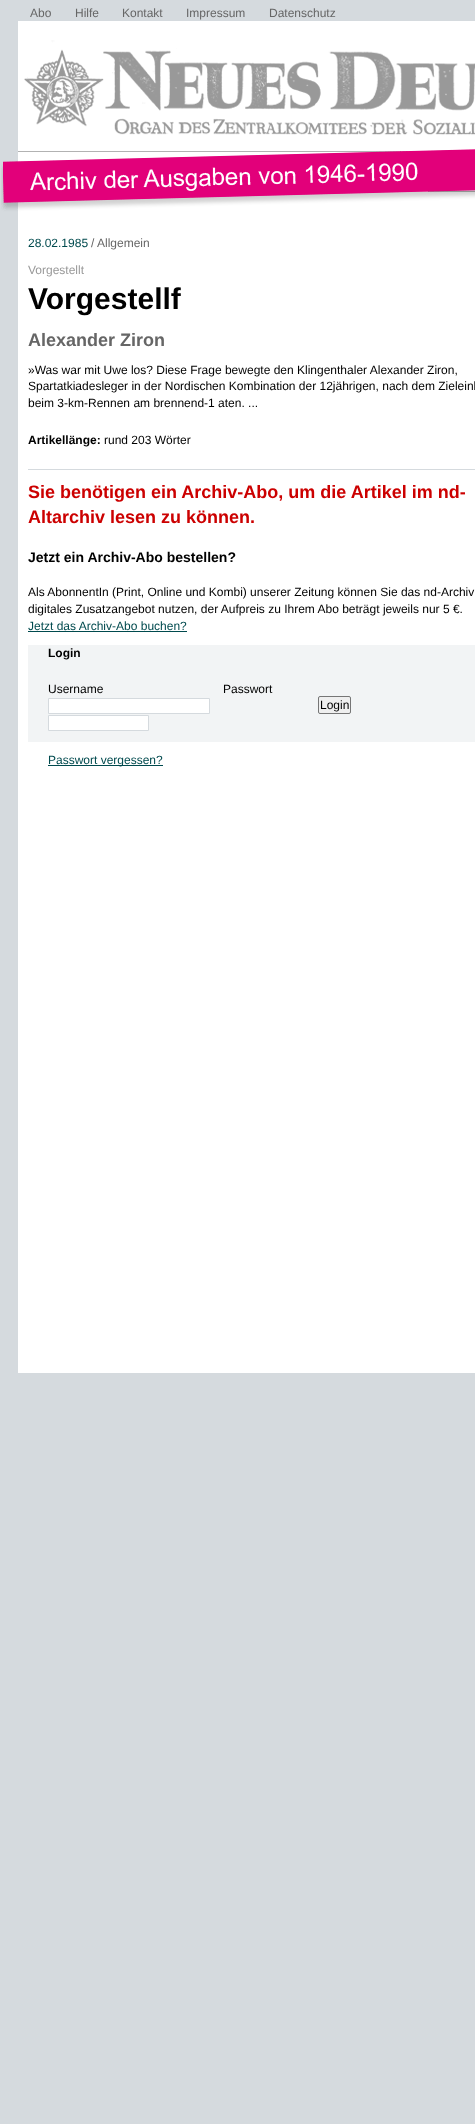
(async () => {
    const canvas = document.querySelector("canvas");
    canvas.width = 475;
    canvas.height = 2124;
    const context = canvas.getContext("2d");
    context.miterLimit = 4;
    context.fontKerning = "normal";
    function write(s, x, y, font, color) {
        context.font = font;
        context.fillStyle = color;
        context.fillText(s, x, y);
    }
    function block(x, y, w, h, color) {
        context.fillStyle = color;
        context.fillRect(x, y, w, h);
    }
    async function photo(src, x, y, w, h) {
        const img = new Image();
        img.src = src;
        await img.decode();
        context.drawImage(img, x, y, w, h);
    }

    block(0, 0, 475, 2124, "rgb(213, 218, 222)");
    write("Abo", 30, 17, "12px Liberation Sans", "rgb(102, 102, 102)");
    write("Hilfe", 75, 17, "12px Liberation Sans", "rgb(102, 102, 102)");
    write("Kontakt", 122, 17, "12px Liberation Sans", "rgb(102, 102, 102)");
    write("Impressum", 186, 17, "12px Liberation Sans", "rgb(102, 102, 102)");
    write("Datenschutz", 269, 17, "12px Liberation Sans", "rgb(102, 102, 102)");
    await photo("media/1.png", 1, 21, 474, 194);
    block(18, 215, 457, 1158, "rgb(255, 255, 255)");
    write("28.02.1985", 28, 247, "12px Liberation Sans", "rgb(0, 74, 78)");
    write("/", 91, 247, "12px Liberation Sans", "rgb(102, 102, 102)");
    write("Allgemein", 97, 247, "12px Liberation Sans", "rgb(102, 102, 102)");
    write("Vorgestellt", 28, 274, "12px Liberation Sans", "rgb(153, 153, 153)");
    write("Vorgestellf", 28, 309, "bold 30px Liberation Sans", "rgb(0, 0, 0)");
    write("Alexander Ziron", 28, 346, "bold 18px Liberation Sans", "rgb(102, 102, 102)");
    write("»Was war mit Uwe los? Diese Frage bewegte den Klingenthaler Alexander Ziron,", 28, 374, "12px Liberation Sans", "rgb(0, 0, 0)");
    write("Spartatkiadesleger in der Nordischen Kombination der 12jährigen, nach dem Zieleinl", 28, 390, "12px Liberation Sans", "rgb(0, 0, 0)");
    write("beim 3-km-Rennen am brennend-1 aten. ...", 28, 407, "12px Liberation Sans", "rgb(0, 0, 0)");
    write("Artikellänge:", 28, 444, "bold 12px Liberation Sans", "rgb(0, 0, 0)");
    write("rund 203 Wörter", 104, 444, "12px Liberation Sans", "rgb(0, 0, 0)");
    block(28, 469, 447, 1, "rgb(213, 218, 222)");
    write("Sie benötigen ein Archiv-Abo, um die Artikel im nd-", 28, 498, "bold 18px Liberation Sans", "rgb(204, 0, 0)");
    write("Altarchiv lesen zu können.", 28, 523, "bold 18px Liberation Sans", "rgb(204, 0, 0)");
    write("Jetzt ein Archiv-Abo bestellen?", 28, 562, "bold 14px Liberation Sans", "rgb(0, 0, 0)");
    write("Als AbonnentIn (Print, Online und Kombi) unserer Zeitung können Sie das nd-Archiv", 28, 596, "12px Liberation Sans", "rgb(0, 0, 0)");
    write("digitales Zusatzangebot nutzen, der Aufpreis zu Ihrem Abo beträgt jeweils nur 5 €.", 28, 613, "12px Liberation Sans", "rgb(0, 0, 0)");
    write("Jetzt das Archiv-Abo buchen?", 28, 630, "12px Liberation Sans", "rgb(0, 74, 78)");
    block(28, 631, 159, 1, "rgb(0, 74, 78)");
    block(28, 645, 447, 97, "rgb(242, 244, 245)");
    write("Login", 48, 657, "bold 12px Liberation Sans", "rgb(0, 0, 0)");
    write("Username", 48, 693, "12px Liberation Sans", "rgb(0, 0, 0)");
    context.fillStyle = "rgb(255, 255, 255)";
    context.beginPath();
    context.rect(48.5, 698.5, 161, 15);
    context.fill();
    context.strokeStyle = "rgb(213, 218, 222)";
    context.stroke();
    write("Passwort", 223, 693, "12px Liberation Sans", "rgb(0, 0, 0)");
    context.fillStyle = "rgb(255, 255, 255)";
    context.beginPath();
    context.rect(48.5, 715.5, 100, 15);
    context.fill();
    context.stroke();
    context.fillStyle = "rgb(239, 239, 239)";
    context.beginPath();
    context.roundRect(318.5, 696.5, 32, 17, 1.5);
    context.fill();
    context.strokeStyle = "rgb(118, 118, 118)";
    context.stroke();
    write("Login", 320, 709, "12px Liberation Sans", "rgb(0, 0, 0)");
    block(48, 765, 115, 1, "rgb(0, 74, 78)");
    write("Passwort vergessen?", 48, 764, "12px Liberation Sans", "rgb(0, 74, 78)");
})();
